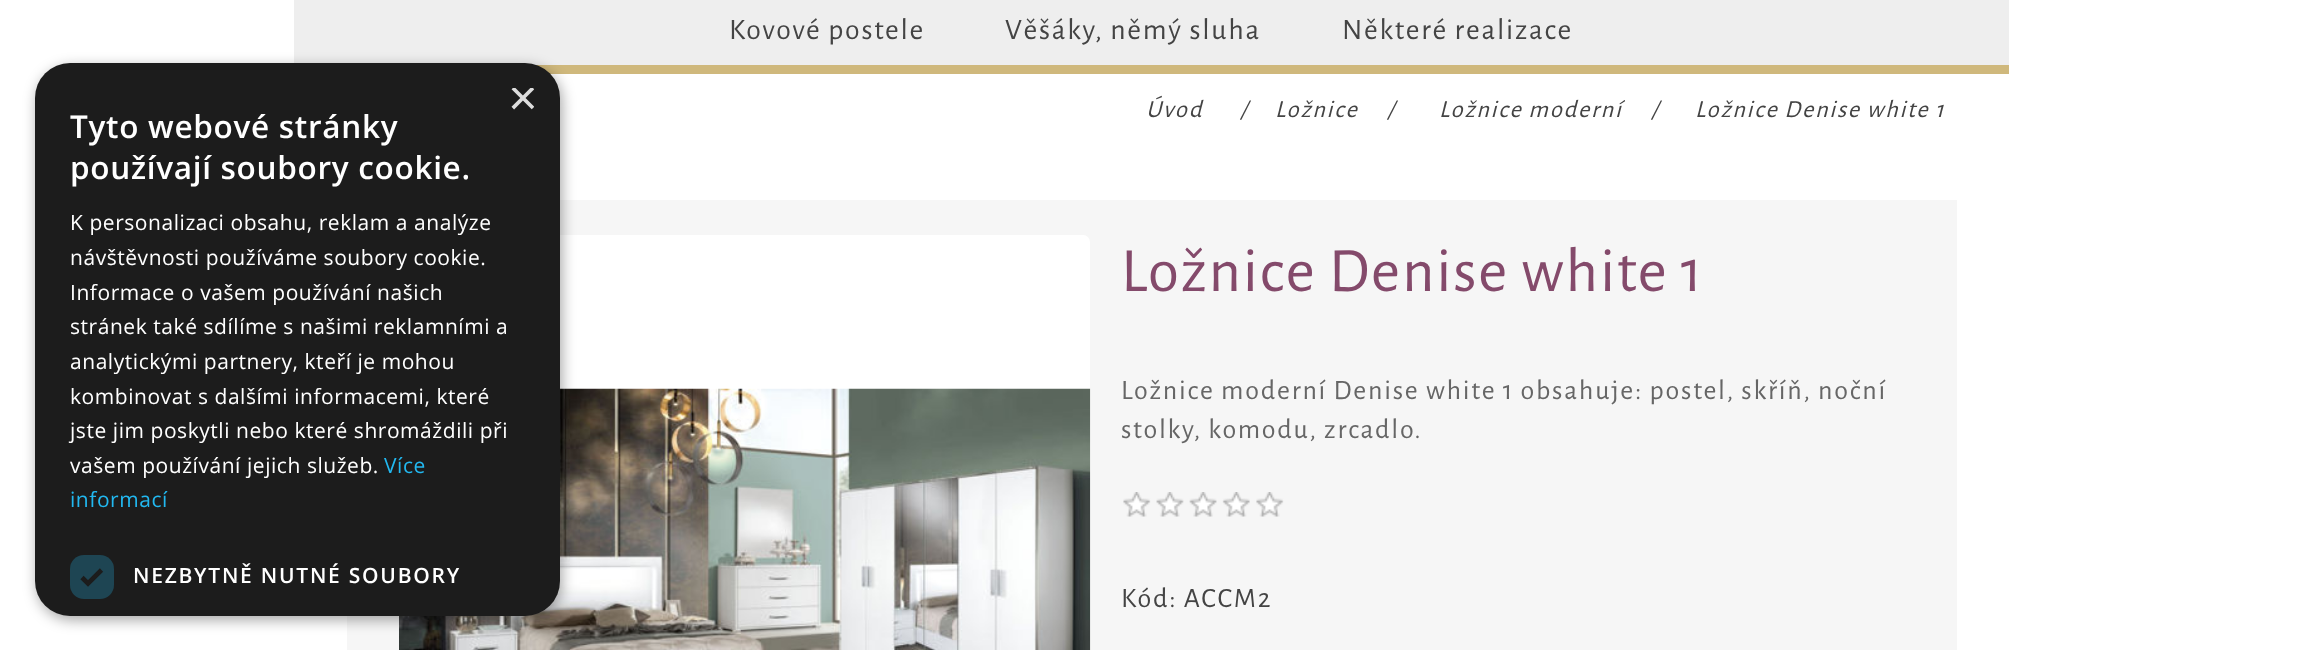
(async () => {
    const canvas = document.querySelector("canvas");
    canvas.width = 2300;
    canvas.height = 650;
    const context = canvas.getContext("2d");
    context.miterLimit = 4;
    context.fontKerning = "normal";
    function write(s, x, y, font, color) {
        context.font = font;
        context.fillStyle = color;
        context.fillText(s, x, y);
    }
    function block(x, y, w, h, color) {
        context.fillStyle = color;
        context.fillRect(x, y, w, h);
    }
    function card(x, y, w, h, r, color) {
        context.fillStyle = color;
        context.beginPath();
        context.roundRect(x, y, w, h, r);
        context.fill();
    }
    async function photo(src, x, y, w, h) {
        const img = new Image();
        img.src = src;
        await img.decode();
        context.drawImage(img, x, y, w, h);
    }

    block(0, 0, 2300, 650, "rgb(255, 255, 255)");
    block(294, 0, 1715, 65, "rgb(238, 238, 238)");
    block(536, 65, 1473, 9, "rgb(207, 184, 124)");
    block(347, 200, 1610, 450, "rgb(246, 246, 246)");
    card(399, 235, 691, 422, 7, "rgb(255, 255, 255)");
    await photo("media/1.png", 399, 388, 692, 262);
    context.fillStyle = "rgba(0, 0, 0, 0.35)";
    context.filter = "blur(7px)";
    context.beginPath();
    context.roundRect(37, 67, 525, 553, 35);
    context.fill();
    context.filter = "none";
    card(35, 63, 525, 553, 35, "rgb(28, 28, 28)");
    context.save();
    context.beginPath();
    context.rect(508, 88, 26, 26);
    context.clip();
    write("×", 508, 115, "51px Liberation Sans", "rgb(221, 221, 221)");
    context.restore();
    context.letterSpacing = "0.7px";
    write("Tyto webové stránky", 70, 138, "600 31.5px Open Sans", "rgb(255, 255, 255)");
    write("používají soubory cookie.", 70, 179, "600 31.5px Open Sans", "rgb(255, 255, 255)");
    context.letterSpacing = "0.55px";
    write("K personalizaci obsahu, reklam a analýze", 70, 230, "21px Open Sans", "rgb(255, 255, 255)");
    write("návštěvnosti používáme soubory cookie.", 70, 265, "21px Open Sans", "rgb(255, 255, 255)");
    write("Informace o vašem používání našich", 70, 300, "21px Open Sans", "rgb(255, 255, 255)");
    write("stránek také sdílíme s našimi reklamními a", 70, 334, "21px Open Sans", "rgb(255, 255, 255)");
    write("analytickými partnery, kteří je mohou", 70, 369, "21px Open Sans", "rgb(255, 255, 255)");
    write("kombinovat s dalšími informacemi, které", 70, 404, "21px Open Sans", "rgb(255, 255, 255)");
    write("jste jim poskytli nebo které shromáždili při", 70, 438, "21px Open Sans", "rgb(255, 255, 255)");
    write("vašem používání jejich služeb.", 70, 473, "21px Open Sans", "rgb(255, 255, 255)");
    write("Více", 384, 473, "21px Open Sans", "rgb(34, 184, 240)");
    write("informací", 70, 507, "21px Open Sans", "rgb(34, 184, 240)");
    card(70, 555, 44, 44, 14, "rgb(30, 69, 83)");
    context.beginPath();
    context.moveTo(82, 577.5);
    context.lineTo(88, 583.5);
    context.lineTo(101.5, 570);
    context.strokeStyle = "rgb(28, 28, 28)";
    context.lineWidth = 4.6;
    context.stroke();
    context.letterSpacing = "1.75px";
    write("NEZBYTNĚ NUTNÉ SOUBORY", 133, 583, "600 21px Open Sans", "rgb(255, 255, 255)");
    write("Kovové postele", 729, 39, "29.75px Alegreya Sans", "rgb(68, 68, 68)");
    write("Věšáky, němý sluha", 1005, 39, "29.75px Alegreya Sans", "rgb(68, 68, 68)");
    write("Některé realizace", 1342, 39, "29.75px Alegreya Sans", "rgb(68, 68, 68)");
    write("Úvod", 1146, 117, "italic 24.5px Alegreya Sans", "rgb(68, 68, 68)");
    write("/", 1240, 117, "italic 24.5px Alegreya Sans", "rgb(68, 68, 68)");
    write("Ložnice", 1275, 117, "italic 24.5px Alegreya Sans", "rgb(68, 68, 68)");
    write("/", 1387, 117, "italic 24.5px Alegreya Sans", "rgb(68, 68, 68)");
    write("Ložnice moderní", 1439, 117, "italic 24.5px Alegreya Sans", "rgb(68, 68, 68)");
    write("/", 1651, 117, "italic 24.5px Alegreya Sans", "rgb(68, 68, 68)");
    write("Ložnice Denise white 1", 1695, 117, "italic 24.5px Alegreya Sans", "rgb(68, 68, 68)");
    write("Ložnice Denise white 1", 1121, 291, "63px Alegreya Sans", "rgb(132, 74, 107)");
    write("Ložnice moderní Denise white 1 obsahuje: postel, skříň, noční", 1121, 399, "28px Alegreya Sans", "rgb(102, 102, 102)");
    write("stolky, komodu, zrcadlo.", 1121, 438, "28px Alegreya Sans", "rgb(102, 102, 102)");
    await photo("media/2.png", 1123, 492, 161, 25);
    write("Kód: ACCM2", 1121, 607, "28px Alegreya Sans", "rgb(68, 68, 68)");
})();
